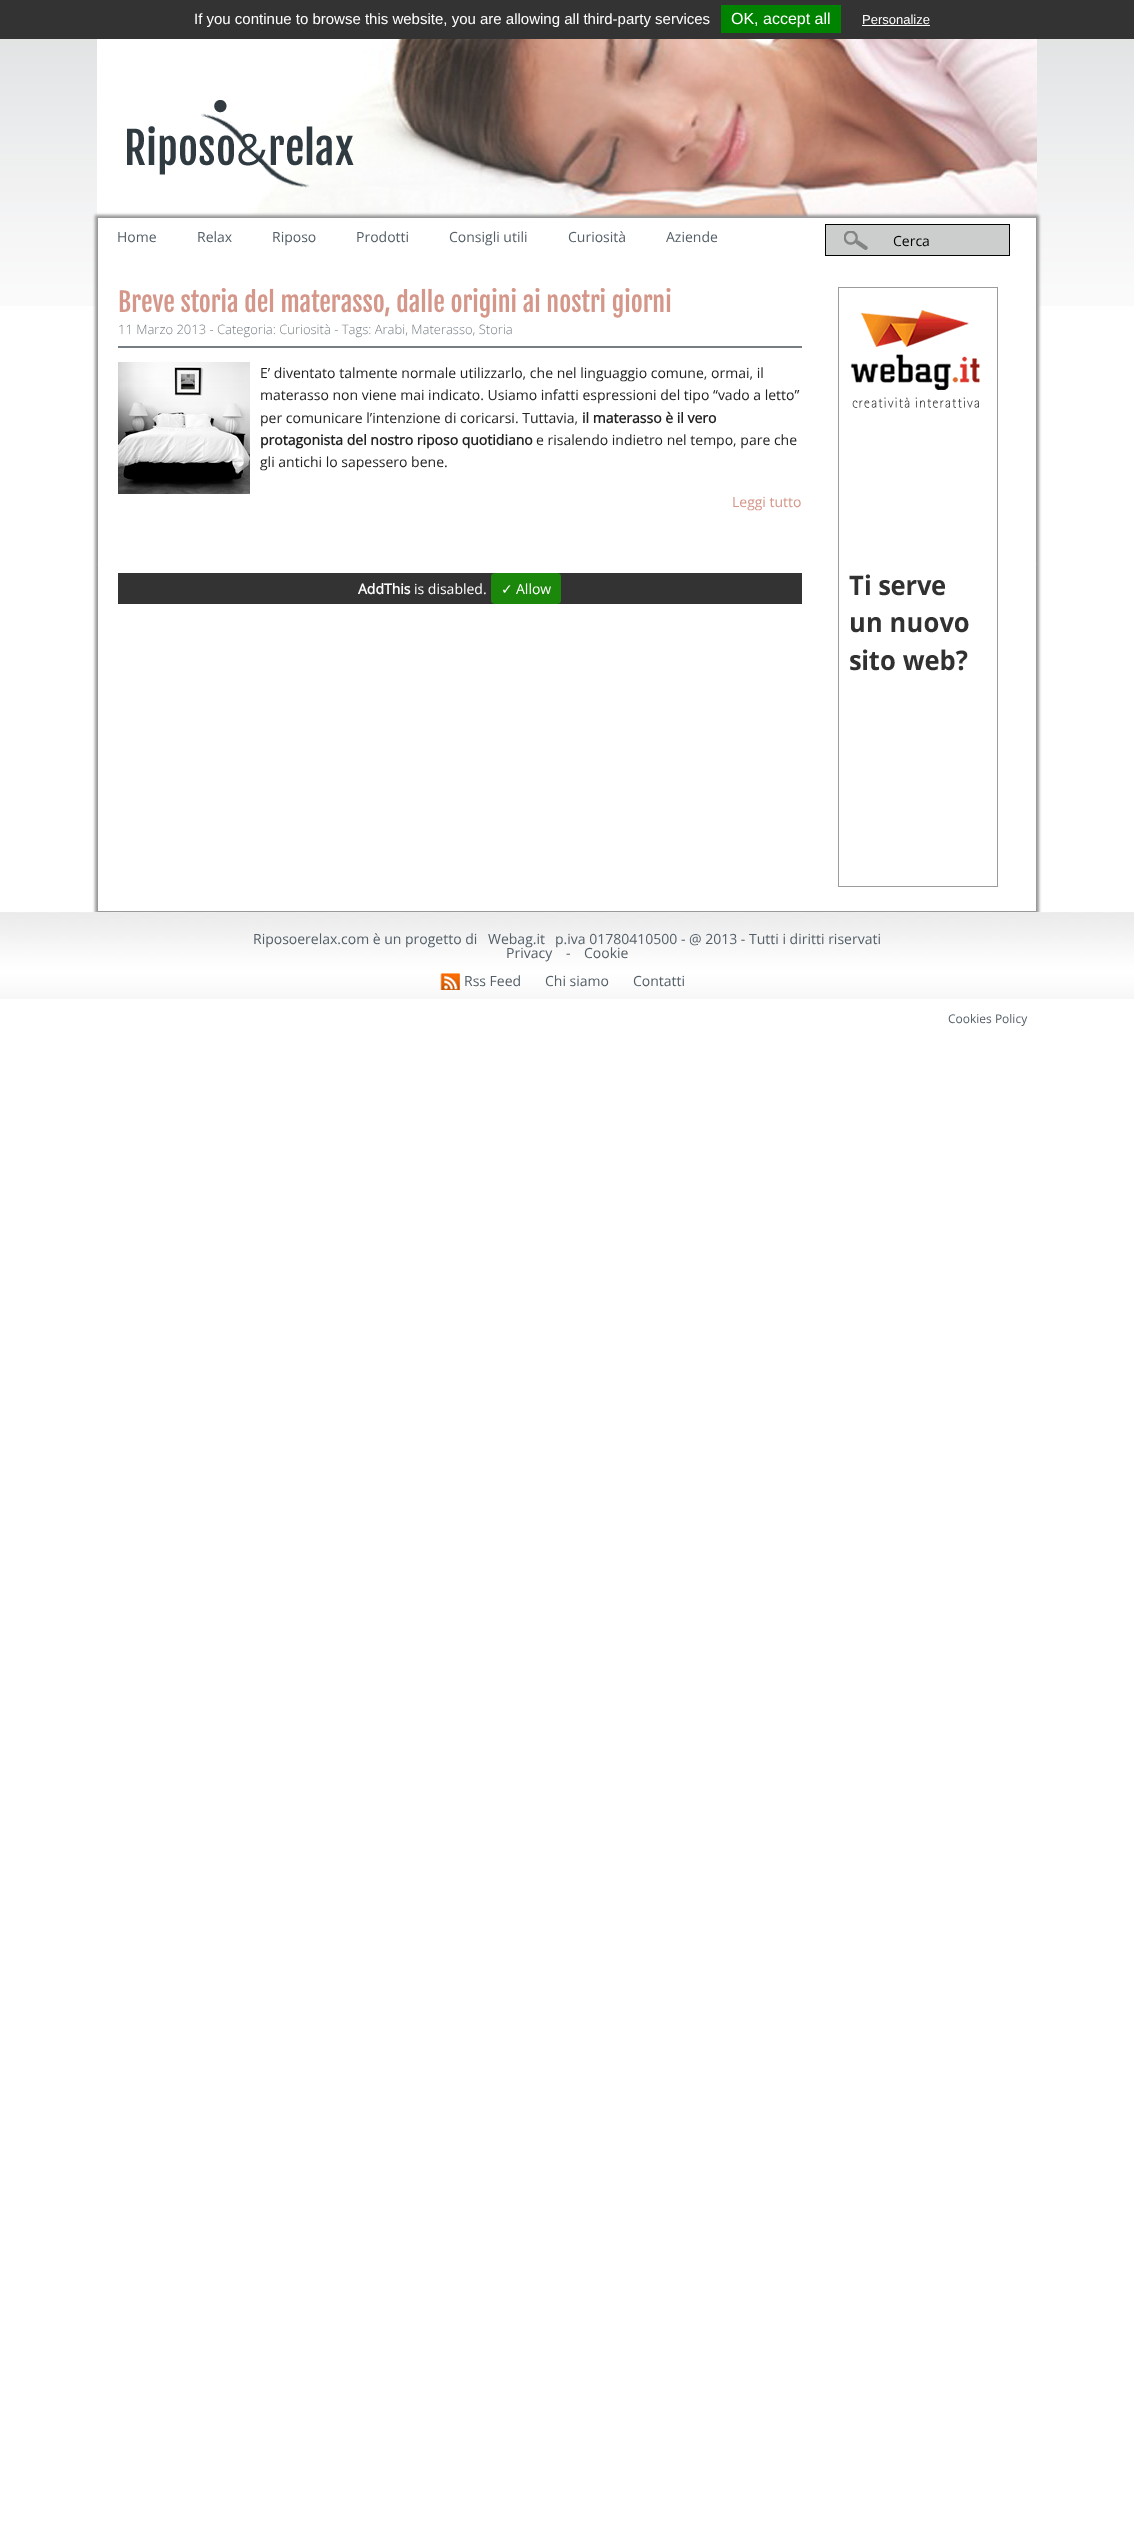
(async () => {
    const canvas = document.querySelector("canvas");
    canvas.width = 1134;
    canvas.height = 2526;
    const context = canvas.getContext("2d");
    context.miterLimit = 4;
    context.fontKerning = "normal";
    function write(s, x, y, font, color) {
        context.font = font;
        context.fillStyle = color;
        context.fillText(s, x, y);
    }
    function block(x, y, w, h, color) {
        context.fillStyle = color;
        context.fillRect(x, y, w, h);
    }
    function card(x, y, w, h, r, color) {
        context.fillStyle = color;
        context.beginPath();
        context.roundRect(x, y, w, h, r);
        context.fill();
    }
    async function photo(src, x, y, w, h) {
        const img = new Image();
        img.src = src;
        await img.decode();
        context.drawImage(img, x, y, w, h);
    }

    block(0, 0, 1134, 2526, "rgb(255, 255, 255)");
    await photo("media/1.png", 0, 39, 1134, 267);
    block(0, 0, 1134, 39, "rgb(51, 51, 51)");
    write("If you continue to browse this website, you are allowing all third-party services", 194, 24, "15px Liberation Sans", "rgb(255, 255, 255)");
    block(721, 5, 120, 28, "rgb(0, 131, 0)");
    write("OK, accept all", 731, 24, "16px Liberation Sans", "rgb(255, 255, 255)");
    write("Personalize", 862, 24, "13px Liberation Sans", "rgb(255, 255, 255)");
    block(862, 25, 68, 1, "rgb(255, 255, 255)");
    block(97, 39, 155, 178, "rgb(255, 255, 255)");
    await photo("media/2.png", 252, 39, 785, 178);
    await photo("media/3.png", 127, 100, 227, 88);
    context.fillStyle = "rgb(153, 153, 153)";
    context.filter = "blur(1.5px)";
    context.beginPath();
    context.rect(95, 215, 944, 699);
    context.fill();
    context.filter = "none";
    context.fillStyle = "rgb(255, 255, 255)";
    context.beginPath();
    context.rect(97.5, 217.5, 939, 694);
    context.fill();
    context.strokeStyle = "rgb(153, 153, 153)";
    context.stroke();
    write("Home", 117, 242, "14px Open Sans", "rgb(83, 94, 102)");
    write("Relax", 197, 242, "14px Open Sans", "rgb(83, 94, 102)");
    write("Riposo", 272, 242, "14px Open Sans", "rgb(83, 94, 102)");
    write("Prodotti", 356, 242, "14px Open Sans", "rgb(83, 94, 102)");
    write("Consigli utili", 449, 242, "14px Open Sans", "rgb(83, 94, 102)");
    write("Curiosità", 568, 242, "14px Open Sans", "rgb(83, 94, 102)");
    write("Aziende", 666, 242, "14px Open Sans", "rgb(83, 94, 102)");
    block(826, 225, 183, 30, "rgb(203, 206, 205)");
    await photo("media/4.png", 844, 231, 24, 19);
    block(825, 224, 185, 1, "rgb(0, 0, 0)");
    block(1009, 224, 1, 32, "rgb(0, 0, 0)");
    block(825, 255, 185, 1, "rgb(0, 0, 0)");
    block(825, 224, 1, 32, "rgb(0, 0, 0)");
    write("Cerca", 893, 246, "14px Open Sans", "rgb(0, 0, 0)");
    write("Breve storia del materasso, dalle origini ai nostri giorni", 118, 312, "26px Fjalla One", "rgb(212, 151, 138)");
    block(118, 346, 684, 2, "rgb(118, 126, 132)");
    write("11 Marzo 2013 - Categoria: Curiosità - Tags: Arabi, Materasso, Storia", 118, 334, "300 13px Open Sans", "rgb(118, 126, 132)");
    await photo("media/5.png", 118, 362, 132, 132);
    write("E’ diventato talmente normale utilizzarlo, che nel linguaggio comune, ormai, il", 260, 378, "14px Open Sans", "rgb(34, 34, 34)");
    write("materasso non viene mai indicato. Usiamo infatti espressioni del tipo “vado a letto”", 260, 400, "14px Open Sans", "rgb(34, 34, 34)");
    write("per comunicare l’intenzione di coricarsi. Tuttavia,", 260, 423, "14px Open Sans", "rgb(34, 34, 34)");
    write("il materasso è il vero", 582, 423, "bold 14px Open Sans", "rgb(34, 34, 34)");
    write("protagonista del nostro riposo quotidiano", 260, 445, "bold 14px Open Sans", "rgb(34, 34, 34)");
    write("e risalendo indietro nel tempo, pare che", 536, 445, "14px Open Sans", "rgb(34, 34, 34)");
    write("gli antichi lo sapessero bene.", 260, 467, "14px Open Sans", "rgb(34, 34, 34)");
    write("Leggi tutto", 732, 507, "14px Open Sans", "rgb(212, 151, 138)");
    block(118, 573, 684, 31, "rgb(51, 51, 51)");
    write("AddThis", 358, 594, "bold 14px Open Sans", "rgb(255, 255, 255)");
    write("is disabled.", 414, 594, "14px Open Sans", "rgb(255, 255, 255)");
    card(491, 573, 70, 31, 4, "rgb(27, 135, 11)");
    write("✓", 501, 594, "14px DejaVu Sans", "rgb(255, 255, 255)");
    write("Allow", 516, 594, "14px Open Sans", "rgb(255, 255, 255)");
    await photo("media/6.png", 838, 287, 160, 600);
    await photo("media/7.png", 0, 912, 1134, 87);
    write("Riposoerelax.com è un progetto di", 253, 944, "14px Open Sans", "rgb(83, 94, 102)");
    write("Webag.it", 488, 944, "14px Open Sans", "rgb(83, 94, 102)");
    write("p.iva 01780410500 - @ 2013 - Tutti i diritti riservati", 555, 944, "14px Open Sans", "rgb(83, 94, 102)");
    write("Privacy", 506, 958, "14px Open Sans", "rgb(83, 94, 102)");
    write("-", 566, 958, "14px Open Sans", "rgb(83, 94, 102)");
    write("Cookie", 584, 958, "14px Open Sans", "rgb(83, 94, 102)");
    await photo("media/8.png", 440, 973, 20, 17);
    write("Rss Feed", 464, 986, "14px Open Sans", "rgb(83, 94, 102)");
    write("Chi siamo", 545, 986, "14px Open Sans", "rgb(83, 94, 102)");
    write("Contatti", 633, 986, "14px Open Sans", "rgb(83, 94, 102)");
    write("Cookies Policy", 948, 1023, "12px Open Sans", "rgb(83, 94, 102)");
})();
